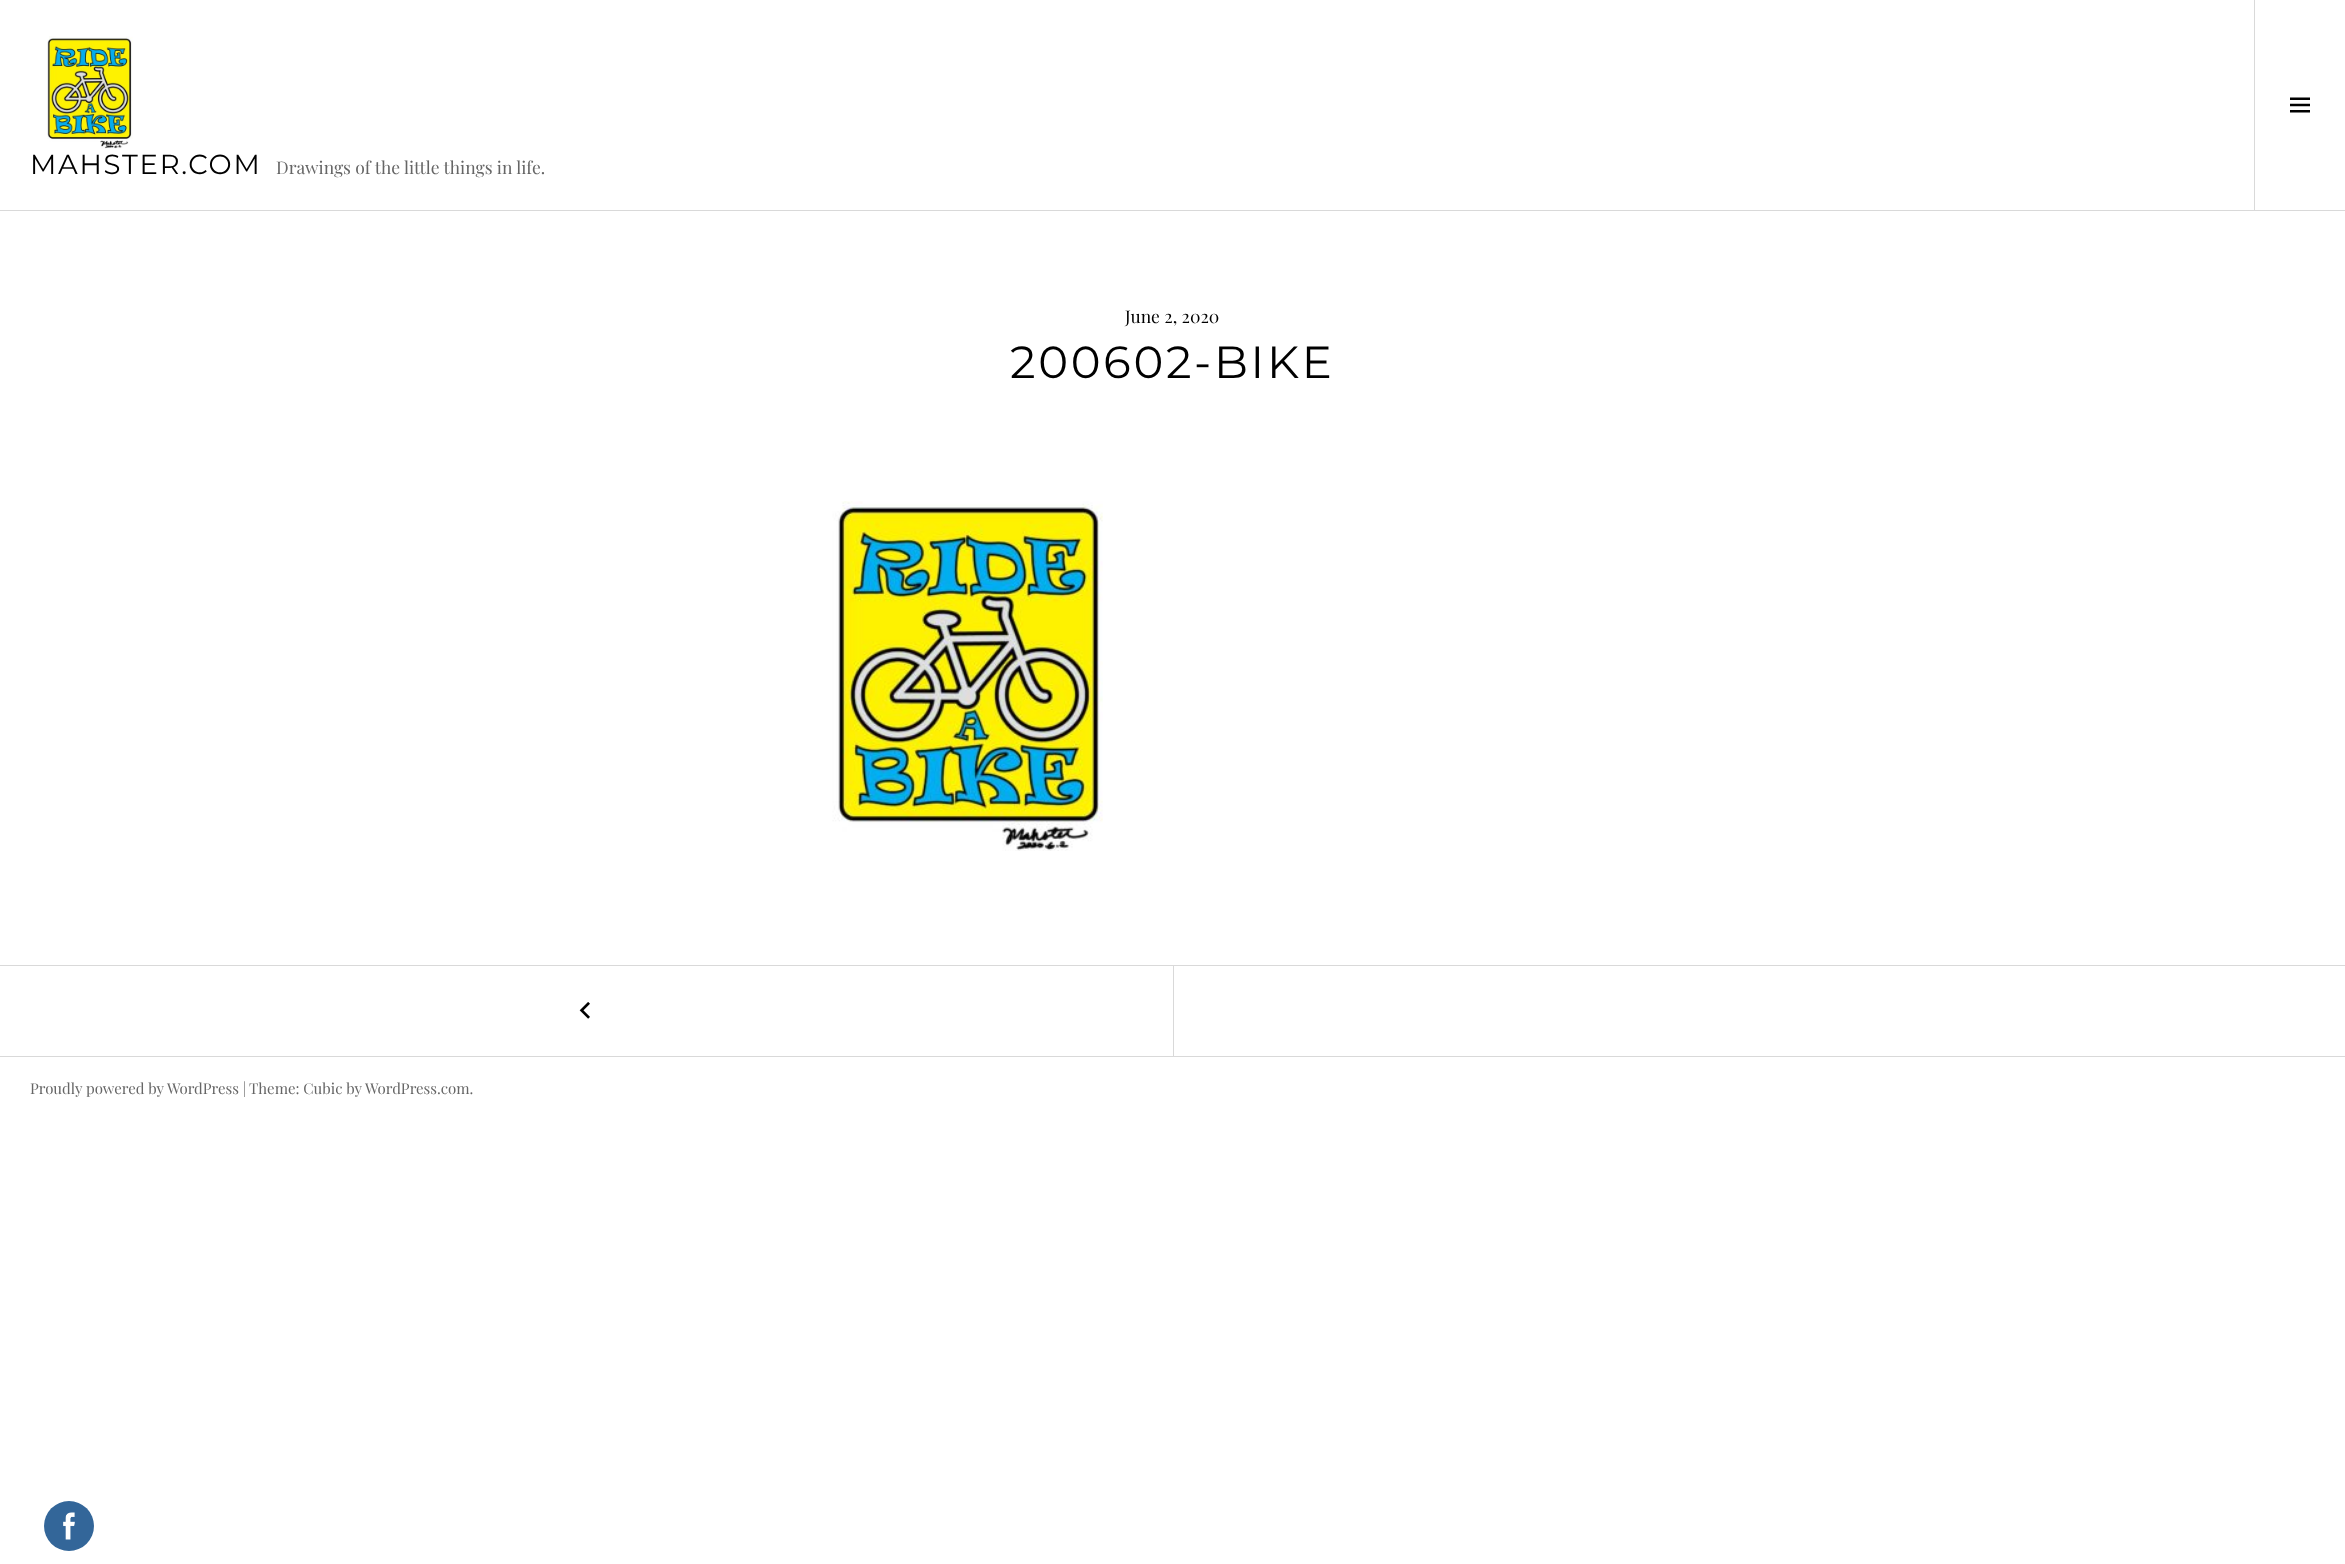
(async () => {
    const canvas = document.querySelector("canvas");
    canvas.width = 2345;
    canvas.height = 1564;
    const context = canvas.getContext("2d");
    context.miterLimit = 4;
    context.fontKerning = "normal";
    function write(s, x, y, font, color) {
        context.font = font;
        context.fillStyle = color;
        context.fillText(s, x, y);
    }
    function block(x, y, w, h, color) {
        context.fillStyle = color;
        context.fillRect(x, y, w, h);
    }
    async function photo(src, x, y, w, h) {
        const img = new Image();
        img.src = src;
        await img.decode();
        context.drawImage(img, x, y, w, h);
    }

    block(0, 0, 2345, 1564, "rgb(255, 255, 255)");
    block(0, 210, 2345, 1, "rgb(217, 217, 217)");
    await photo("media/1.png", 47, 36, 86, 113);
    context.letterSpacing = "1.75px";
    write("MAHSTER.COM", 30, 174, "27.5px Montserrat", "rgb(0, 0, 0)");
    context.letterSpacing = "0px";
    write("Drawings of the little things in life.", 276, 174, "17.5px Playfair Display", "rgb(102, 102, 102)");
    block(2254, 0, 1, 210, "rgb(217, 217, 217)");
    await photo("media/2.png", 2290, 97, 20, 16);
    write("June 2, 2020", 1125, 323, "17.5px Playfair Display", "rgb(0, 0, 0)");
    context.letterSpacing = "2.75px";
    write("200602-BIKE", 1010, 378, "45px Montserrat", "rgb(0, 0, 0)");
    await photo("media/3.png", 832, 501, 271, 350);
    block(0, 965, 2345, 1, "rgb(217, 217, 217)");
    await photo("media/4.png", 579, 1002, 11, 17);
    block(1173, 966, 1, 90, "rgb(217, 217, 217)");
    block(0, 1056, 2345, 1, "rgb(217, 217, 217)");
    context.letterSpacing = "0px";
    write("Proudly powered by WordPress |", 30, 1094, "15px Playfair Display", "rgb(102, 102, 102)");
    write("Theme: Cubic by", 249, 1094, "15px Playfair Display", "rgb(102, 102, 102)");
    write("WordPress.com.", 365, 1094, "15px Playfair Display", "rgb(102, 102, 102)");
    context.fillStyle = "rgb(51, 102, 153)";
    context.beginPath();
    context.arc(69, 1526, 25, 0, Math.PI * 2);
    context.fill();
    await photo("media/5.png", 63, 1512, 12, 28);
})();
